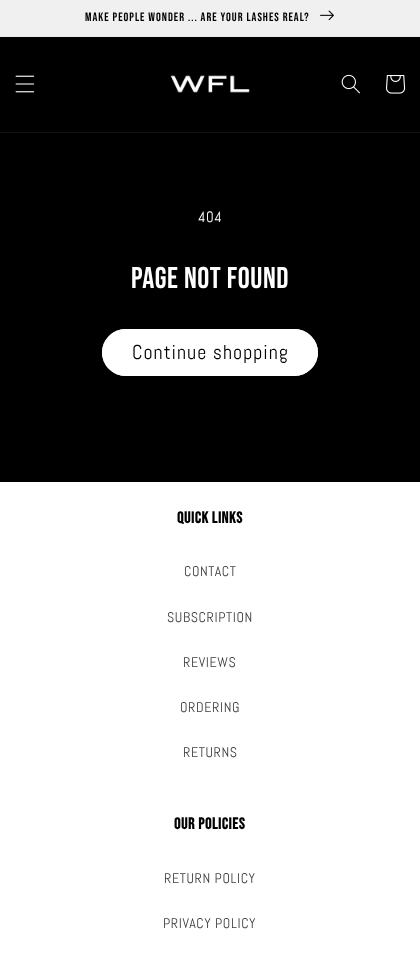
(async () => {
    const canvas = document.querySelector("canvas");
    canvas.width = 420;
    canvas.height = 957;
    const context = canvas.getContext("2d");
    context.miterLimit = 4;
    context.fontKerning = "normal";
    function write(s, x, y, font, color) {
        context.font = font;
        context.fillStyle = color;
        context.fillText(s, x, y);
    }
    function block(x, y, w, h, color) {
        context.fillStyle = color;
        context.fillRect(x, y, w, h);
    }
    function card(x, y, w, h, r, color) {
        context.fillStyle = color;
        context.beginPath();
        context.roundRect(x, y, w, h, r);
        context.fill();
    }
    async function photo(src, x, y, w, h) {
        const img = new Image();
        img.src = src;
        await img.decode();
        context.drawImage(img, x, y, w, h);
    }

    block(0, 0, 420, 957, "rgb(0, 0, 0)");
    block(0, 36, 420, 1, "rgb(235, 235, 235)");
    block(0, 0, 420, 36, "rgb(240, 240, 240)");
    context.letterSpacing = "1px";
    write("Make people wonder ... are your lashes REAL?", 85, 21, "12px Bebas Neue", "rgb(0, 0, 0)");
    await photo("media/1.png", 320, 10, 14, 11);
    block(0, 132, 420, 1, "rgb(20, 20, 20)");
    await photo("media/2.png", 15, 75, 20, 18);
    await photo("media/3.png", 170, 75, 80, 18);
    await photo("media/4.png", 341, 74, 19, 20);
    await photo("media/5.png", 386, 75, 20, 19);
    context.letterSpacing = "0.6px";
    write("404", 198, 222, "15px Abel", "rgb(255, 255, 255)");
    write("Page not found", 131, 288, "30px Bebas Neue", "rgb(255, 255, 255)");
    card(102, 329, 216, 47, 23.5, "rgb(255, 255, 255)");
    context.beginPath();
    context.roundRect(102.5, 329.5, 215, 46, 23);
    context.strokeStyle = "rgb(255, 255, 255)";
    context.stroke();
    context.letterSpacing = "1px";
    write("Continue shopping", 132, 359, "20px Abel", "rgb(0, 0, 0)");
    block(0, 482, 420, 475, "rgb(255, 255, 255)");
    context.letterSpacing = "0.6px";
    write("Quick Links", 177, 523, "bold 16px Bebas Neue", "rgb(0, 0, 0)");
    write("CONTACT", 184, 576, "14px Abel", "rgb(64, 64, 64)");
    write("SUBSCRIPTION", 167, 622, "14px Abel", "rgb(64, 64, 64)");
    write("REVIEWS", 183, 667, "14px Abel", "rgb(64, 64, 64)");
    write("ORDERING", 180, 712, "14px Abel", "rgb(64, 64, 64)");
    write("RETURNS", 183, 757, "14px Abel", "rgb(64, 64, 64)");
    write("Our Policies", 174, 829, "bold 16px Bebas Neue", "rgb(0, 0, 0)");
    write("RETURN POLICY", 164, 883, "14px Abel", "rgb(64, 64, 64)");
    write("PRIVACY POLICY", 163, 928, "14px Abel", "rgb(64, 64, 64)");
})();
